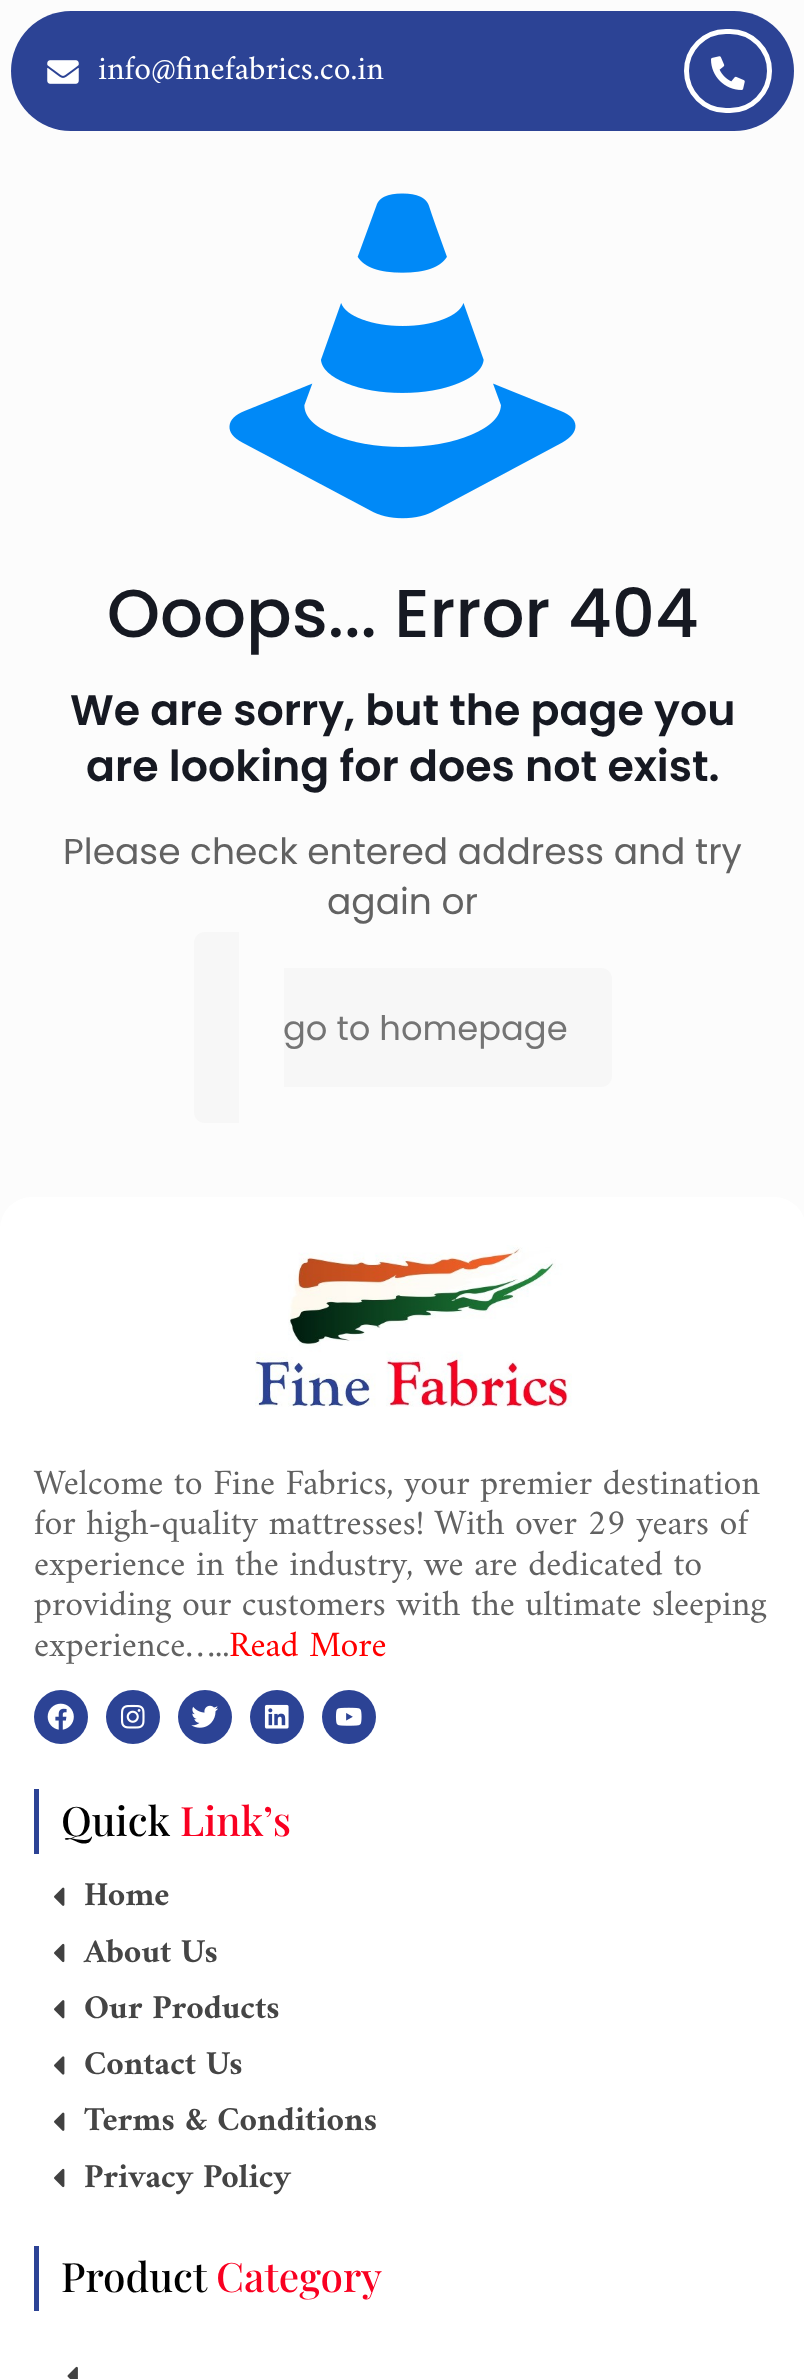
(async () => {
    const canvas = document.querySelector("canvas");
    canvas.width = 804;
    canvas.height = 2379;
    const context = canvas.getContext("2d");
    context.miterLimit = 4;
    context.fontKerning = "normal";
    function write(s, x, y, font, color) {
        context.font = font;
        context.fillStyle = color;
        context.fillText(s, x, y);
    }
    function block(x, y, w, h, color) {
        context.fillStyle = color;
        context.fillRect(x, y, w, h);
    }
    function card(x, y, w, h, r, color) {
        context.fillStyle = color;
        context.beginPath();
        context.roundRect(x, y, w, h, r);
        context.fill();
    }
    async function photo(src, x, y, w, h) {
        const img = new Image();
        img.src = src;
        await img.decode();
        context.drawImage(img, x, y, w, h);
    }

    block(0, 0, 804, 2379, "rgb(252, 252, 252)");
    card(11, 11, 783, 120, 60, "rgb(44, 67, 149)");
    await photo("media/1.png", 47, 60, 32, 24);
    write("info@finefabrics.co.in", 98, 79, "33.75px Amiri", "rgb(255, 255, 255)");
    context.beginPath();
    context.roundRect(686.5, 31.5, 83, 79, 39.5);
    context.strokeStyle = "rgb(255, 255, 255)";
    context.lineWidth = 5;
    context.stroke();
    await photo("media/2.png", 711, 56, 34, 34);
    await photo("media/3.png", 229, 193, 347, 326);
    write("Ooops... Error 404", 107, 637, "500 67.5px Poppins", "rgb(22, 25, 34)");
    write("We are sorry, but the page you", 70, 725, "600 42.75px Poppins", "rgb(22, 25, 34)");
    write("are looking for does not exist.", 86, 781, "600 42.75px Poppins", "rgb(22, 25, 34)");
    write("Please check entered address and try", 63, 864, "36px Poppins", "rgb(98, 98, 98)");
    write("again or", 327, 914, "36px Poppins", "rgb(98, 98, 98)");
    context.fillStyle = "rgb(247, 247, 247)";
    context.beginPath();
    context.roundRect(284, 968, 328, 119, [0, 11, 11, 0]);
    context.fill();
    write("go to homepage", 283, 1040, "33.75px Poppins", "rgb(116, 116, 116)");
    context.fillStyle = "rgb(247, 247, 247)";
    context.beginPath();
    context.roundRect(194, 932, 45, 191, [11, 0, 0, 11]);
    context.fill();
    card(0, 1197, 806, 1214, 32, "rgb(255, 255, 255)");
    await photo("media/4.png", 255, 1245, 317, 162);
    write("Welcome to Fine Fabrics, your premier destination", 34, 1494, "36px Amiri", "rgb(98, 98, 98)");
    write("for high-quality mattresses! With over 29 years of", 34, 1534, "36px Amiri", "rgb(98, 98, 98)");
    write("experience in the industry, we are dedicated to", 34, 1575, "36px Amiri", "rgb(98, 98, 98)");
    write("providing our customers with the ultimate sleeping", 34, 1615, "36px Amiri", "rgb(98, 98, 98)");
    write("experience…..", 34, 1656, "36px Amiri", "rgb(98, 98, 98)");
    write("Read More", 229, 1656, "36px Amiri", "rgb(255, 0, 0)");
    context.fillStyle = "rgb(44, 67, 149)";
    context.beginPath();
    context.arc(61, 1717, 27, 0, Math.PI * 2);
    context.fill();
    await photo("media/5.png", 47, 1703, 27, 27);
    context.beginPath();
    context.arc(133, 1717, 27, 0, Math.PI * 2);
    context.fill();
    await photo("media/6.png", 120, 1704, 25, 25);
    context.beginPath();
    context.arc(205, 1717, 27, 0, Math.PI * 2);
    context.fill();
    await photo("media/7.png", 191, 1705, 27, 23);
    context.beginPath();
    context.arc(277, 1717, 27, 0, Math.PI * 2);
    context.fill();
    await photo("media/8.png", 264, 1704, 25, 25);
    context.beginPath();
    context.arc(349, 1717, 27, 0, Math.PI * 2);
    context.fill();
    await photo("media/9.png", 335, 1707, 27, 19);
    block(34, 1789, 5, 65, "rgb(44, 67, 149)");
    write("Quick", 61, 1836, "500 40.5px Playfair Display", "rgb(0, 0, 0)");
    write("Link’s", 180, 1836, "500 40.5px Playfair Display", "rgb(249, 0, 33)");
    await photo("media/10.png", 54, 1887, 11, 19);
    write("Home", 84, 1905, "bold 33.75px Amiri", "rgb(69, 69, 69)");
    await photo("media/11.png", 54, 1943, 11, 20);
    write("About Us", 84, 1962, "bold 33.75px Amiri", "rgb(69, 69, 69)");
    await photo("media/12.png", 54, 2000, 11, 19);
    write("Our Products", 84, 2018, "bold 33.75px Amiri", "rgb(69, 69, 69)");
    await photo("media/13.png", 54, 2056, 11, 19);
    write("Contact Us", 84, 2074, "bold 33.75px Amiri", "rgb(69, 69, 69)");
    await photo("media/10.png", 54, 2112, 11, 19);
    write("Terms & Conditions", 84, 2130, "bold 33.75px Amiri", "rgb(69, 69, 69)");
    await photo("media/11.png", 54, 2168, 11, 20);
    write("Privacy Policy", 84, 2187, "bold 33.75px Amiri", "rgb(69, 69, 69)");
    block(34, 2246, 5, 65, "rgb(44, 67, 149)");
    write("Product", 61, 2292, "500 40.5px Playfair Display", "rgb(0, 0, 0)");
    write("Category", 216, 2292, "500 40.5px Playfair Display", "rgb(249, 0, 33)");
    await photo("media/14.png", 67, 2366, 11, 13);
})();
